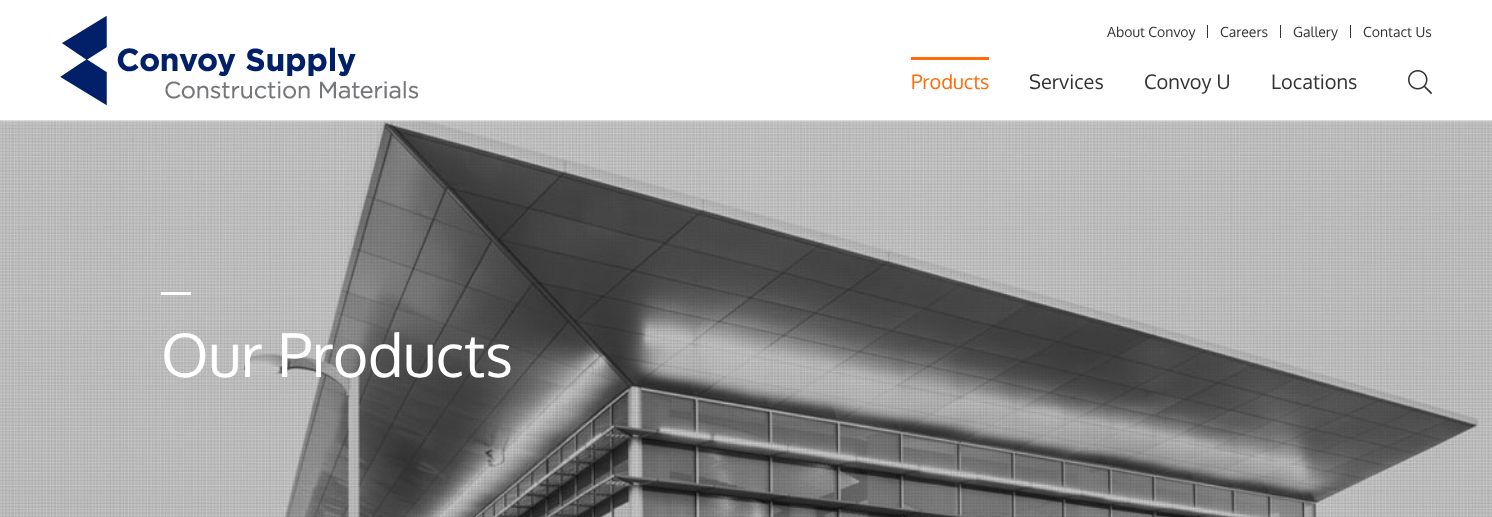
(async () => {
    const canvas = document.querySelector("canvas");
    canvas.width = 1492;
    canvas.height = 517;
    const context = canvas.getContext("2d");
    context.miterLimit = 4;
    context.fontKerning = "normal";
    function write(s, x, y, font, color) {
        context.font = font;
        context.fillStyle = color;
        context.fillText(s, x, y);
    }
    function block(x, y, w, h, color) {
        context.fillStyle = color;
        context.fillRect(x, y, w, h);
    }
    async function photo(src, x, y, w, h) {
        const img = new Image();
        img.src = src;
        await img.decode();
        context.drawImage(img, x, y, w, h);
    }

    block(0, 0, 1492, 517, "rgb(255, 255, 255)");
    await photo("media/3.png", 0, 120, 1492, 397);
    context.save();
    context.beginPath();
    context.rect(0, 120, 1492, 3);
    context.clip();
    context.fillStyle = "rgb(231, 231, 231)";
    context.filter = "blur(1px)";
    context.beginPath();
    context.rect(0, 1, 1492, 120);
    context.fill();
    context.filter = "none";
    context.restore();
    await photo("media/1.png", 60, 15, 358, 91);
    block(1207, 25, 1, 13, "rgb(51, 51, 51)");
    write("About Convoy", 1107, 37, "14px Oxygen", "rgb(51, 51, 51)");
    block(1280, 25, 1, 13, "rgb(51, 51, 51)");
    write("Careers", 1220, 37, "14px Oxygen", "rgb(51, 51, 51)");
    block(1350, 25, 1, 13, "rgb(51, 51, 51)");
    write("Gallery", 1293, 37, "14px Oxygen", "rgb(51, 51, 51)");
    write("Contact Us", 1363, 37, "14px Oxygen", "rgb(51, 51, 51)");
    block(911, 57, 78, 3, "rgb(255, 107, 8)");
    write("Products", 911, 89, "20px Oxygen", "rgb(255, 107, 8)");
    write("Services", 1029, 89, "20px Oxygen", "rgb(51, 51, 51)");
    write("Convoy U", 1144, 89, "20px Oxygen", "rgb(51, 51, 51)");
    write("Locations", 1271, 89, "20px Oxygen", "rgb(51, 51, 51)");
    await photo("media/2.png", 1408, 70, 24, 24);
    block(161, 292, 30, 3, "rgb(255, 255, 255)");
    write("Our Products", 161, 377, "60px Oxygen", "rgb(255, 255, 255)");
})();
